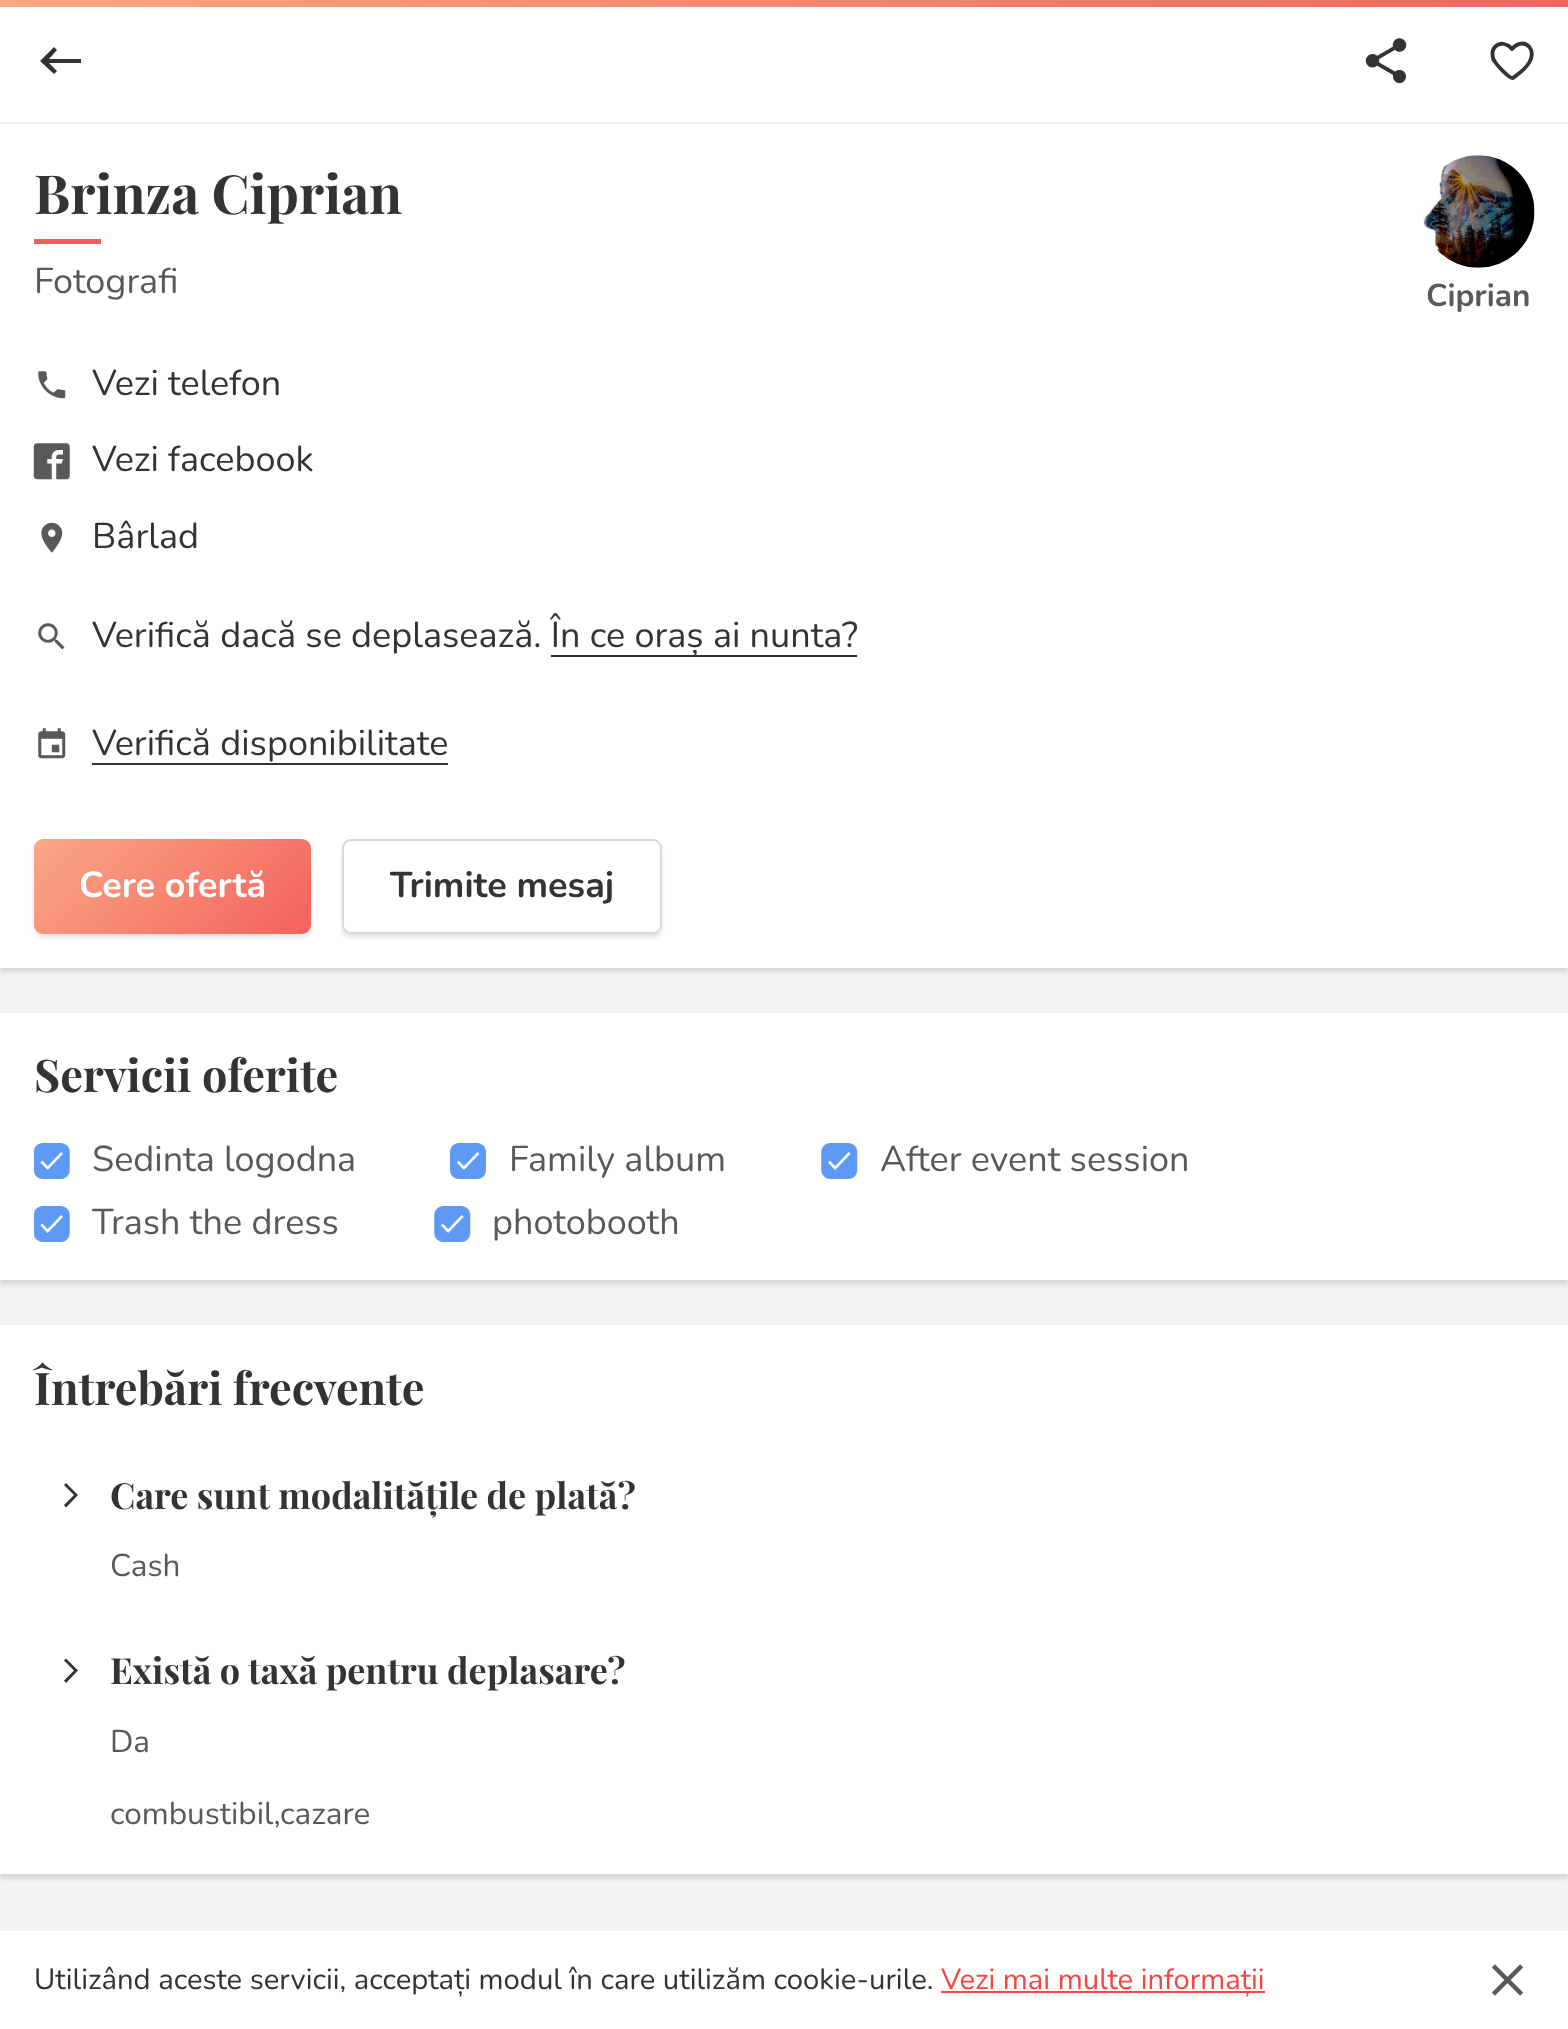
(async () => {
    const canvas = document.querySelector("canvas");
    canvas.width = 1568;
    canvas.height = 2029;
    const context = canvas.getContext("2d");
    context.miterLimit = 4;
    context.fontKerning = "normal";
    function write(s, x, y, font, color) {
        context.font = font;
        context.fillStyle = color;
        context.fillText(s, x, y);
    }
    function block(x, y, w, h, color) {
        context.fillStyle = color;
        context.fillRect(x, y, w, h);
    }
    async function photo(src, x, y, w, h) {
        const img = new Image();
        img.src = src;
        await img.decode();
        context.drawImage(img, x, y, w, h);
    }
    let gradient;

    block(0, 0, 1568, 2029, "rgb(242, 242, 242)");
    gradient = context.createLinearGradient(390, -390, 1178, 397);
    gradient.addColorStop(0, "rgb(249, 167, 132)");
    gradient.addColorStop(1, "rgb(244, 101, 95)");
    context.fillStyle = gradient;
    context.fillRect(0, 0, 1568, 7);
    context.fillStyle = "rgba(0, 0, 0, 0.1)";
    context.filter = "blur(2px)";
    context.beginPath();
    context.rect(0, 126, 1568, 846);
    context.fill();
    context.filter = "none";
    block(0, 7, 1568, 115, "rgb(255, 255, 255)");
    context.fillStyle = "rgb(51, 51, 51)";
    context.beginPath();
    context.moveTo(81, 59);
    context.lineTo(81, 63);
    context.lineTo(49, 63);
    context.lineTo(57, 71);
    context.lineTo(54, 74);
    context.lineTo(40, 61);
    context.lineTo(54, 47);
    context.lineTo(57, 50);
    context.lineTo(49, 59);
    context.closePath();
    context.fill();
    await photo("media/1.png", 1365, 38, 42, 46);
    context.beginPath();
    context.moveTo(1522.5, 43.5);
    context.bezierCurveTo(1518.5, 43.5, 1514.5, 46, 1512, 49);
    context.bezierCurveTo(1510, 46.5, 1507, 44.5, 1504, 44);
    context.bezierCurveTo(1497.5, 42.5, 1492, 48, 1492.5, 54.5);
    context.bezierCurveTo(1492.5, 57.5, 1493.5, 60.5, 1495.5, 62.5);
    context.bezierCurveTo(1496.5, 64.5, 1509.5, 79, 1513, 78);
    context.lineTo(1517.5, 74.5);
    context.bezierCurveTo(1525, 69, 1537, 57.5, 1529.5, 47);
    context.bezierCurveTo(1527.5, 45, 1525, 43.5, 1522.5, 43.5);
    context.strokeStyle = "rgb(51, 51, 51)";
    context.lineWidth = 3.8;
    context.lineCap = "round";
    context.lineJoin = "round";
    context.stroke();
    block(0, 124, 1568, 844, "rgb(255, 255, 255)");
    write("Brinza Ciprian", 34, 214, "bold 54px Playfair Display", "rgb(51, 51, 51)");
    block(34, 239, 67, 5, "rgb(244, 95, 93)");
    write("Fotografi", 34, 293, "36px Nunito", "rgb(89, 89, 89)");
    await photo("media/2.png", 1422, 155, 113, 113);
    write("Ciprian", 1426, 306, "bold 31.5px Nunito", "rgb(89, 89, 89)");
    await photo("media/3.png", 38, 371, 28, 28);
    write("Vezi telefon", 92, 395, "36px Nunito", "rgb(51, 51, 51)");
    await photo("media/4.png", 33, 443, 37, 37);
    write("Vezi facebook", 92, 471, "36px Nunito", "rgb(51, 51, 51)");
    await photo("media/5.png", 41, 522, 22, 31);
    write("Bârlad", 92, 548, "36px Nunito", "rgb(51, 51, 51)");
    await photo("media/6.png", 38, 623, 27, 27);
    write("Verifică dacă se deplasează. În ce oraș ai nunta?", 92, 647, "36px Nunito", "rgb(51, 51, 51)");
    block(551, 655, 306, 2, "rgb(51, 51, 51)");
    await photo("media/7.png", 38, 728, 28, 31);
    write("Verifică disponibilitate", 92, 755, "36px Nunito", "rgb(51, 51, 51)");
    block(92, 763, 356, 2, "rgb(51, 51, 51)");
    context.fillStyle = "rgba(0, 0, 0, 0.1)";
    context.filter = "blur(2px)";
    context.beginPath();
    context.roundRect(34, 844, 277, 94, 9);
    context.fill();
    context.filter = "none";
    gradient = context.createLinearGradient(79, 794, 265, 979);
    gradient.addColorStop(0, "rgb(249, 168, 133)");
    gradient.addColorStop(1, "rgb(244, 98, 93)");
    context.fillStyle = gradient;
    context.beginPath();
    context.roundRect(34, 839, 277, 95, 9);
    context.fill();
    write("Cere ofertă", 79, 897, "bold 36px Nunito", "rgb(255, 255, 255)");
    context.fillStyle = "rgba(0, 0, 0, 0.1)";
    context.filter = "blur(2px)";
    context.beginPath();
    context.roundRect(342, 844, 320, 94, 9);
    context.fill();
    context.filter = "none";
    context.fillStyle = "rgb(255, 255, 255)";
    context.beginPath();
    context.roundRect(343, 840, 318, 93, 8);
    context.fill();
    context.strokeStyle = "rgb(217, 217, 217)";
    context.lineWidth = 2;
    context.lineJoin = "miter";
    context.stroke();
    write("Trimite mesaj", 390, 897, "bold 36px Nunito", "rgb(51, 51, 51)");
    context.fillStyle = "rgba(0, 0, 0, 0.1)";
    context.filter = "blur(2px)";
    context.beginPath();
    context.rect(0, 1017, 1568, 268);
    context.fill();
    context.filter = "none";
    block(0, 1013, 1568, 267, "rgb(255, 255, 255)");
    write("Servicii oferite", 34, 1092, "bold 45px Playfair Display", "rgb(51, 51, 51)");
    await photo("media/8.png", 33, 1143, 37, 36);
    write("Sedinta logodna", 92, 1171, "36px Nunito", "rgb(89, 89, 89)");
    await photo("media/9.png", 450, 1143, 36, 36);
    write("Family album", 509, 1171, "36px Nunito", "rgb(89, 89, 89)");
    await photo("media/10.png", 821, 1143, 37, 36);
    write("After event session", 880, 1171, "36px Nunito", "rgb(89, 89, 89)");
    await photo("media/8.png", 33, 1206, 37, 36);
    write("Trash the dress", 92, 1234, "36px Nunito", "rgb(89, 89, 89)");
    await photo("media/11.png", 434, 1206, 37, 36);
    write("photobooth", 492, 1234, "36px Nunito", "rgb(89, 89, 89)");
    context.fillStyle = "rgba(0, 0, 0, 0.1)";
    context.filter = "blur(2px)";
    context.beginPath();
    context.rect(0, 1330, 1568, 549);
    context.fill();
    context.filter = "none";
    block(0, 1325, 1568, 549, "rgb(255, 255, 255)");
    write("Întrebări frecvente", 34, 1405, "bold 45px Playfair Display", "rgb(51, 51, 51)");
    context.beginPath();
    context.moveTo(64, 1505);
    context.lineTo(66, 1507.5);
    context.lineTo(78, 1495);
    context.lineTo(66, 1483);
    context.lineTo(64, 1485);
    context.lineTo(74, 1495);
    context.closePath();
    context.fill();
    write("Care sunt modalitățile de plată?", 110, 1509, "bold 36px Playfair Display", "rgb(51, 51, 51)");
    write("Cash", 110, 1576, "31.5px Nunito", "rgb(89, 89, 89)");
    context.fillStyle = "rgb(51, 51, 51)";
    context.beginPath();
    context.moveTo(64, 1680.5);
    context.lineTo(66, 1683);
    context.lineTo(78, 1670.5);
    context.lineTo(66, 1658.5);
    context.lineTo(64, 1660.5);
    context.lineTo(74, 1670.5);
    context.closePath();
    context.fill();
    write("Există o taxă pentru deplasare?", 110, 1684, "bold 36px Playfair Display", "rgb(51, 51, 51)");
    write("Da", 110, 1752, "31.5px Nunito", "rgb(89, 89, 89)");
    write("combustibil,cazare", 110, 1824, "31.5px Nunito", "rgb(89, 89, 89)");
    block(0, 1931, 1568, 98, "rgb(255, 255, 255)");
    write("Utilizând aceste servicii, acceptați modul în care utilizăm cookie-urile.", 34, 1989, "29.25px Nunito", "rgb(51, 51, 51)");
    block(941, 1991, 324, 2, "rgb(244, 70, 67)");
    write("Vezi mai multe informații", 941, 1989, "29.25px Nunito", "rgb(244, 70, 67)");
    await photo("media/12.png", 1491, 1964, 33, 32);
})();
